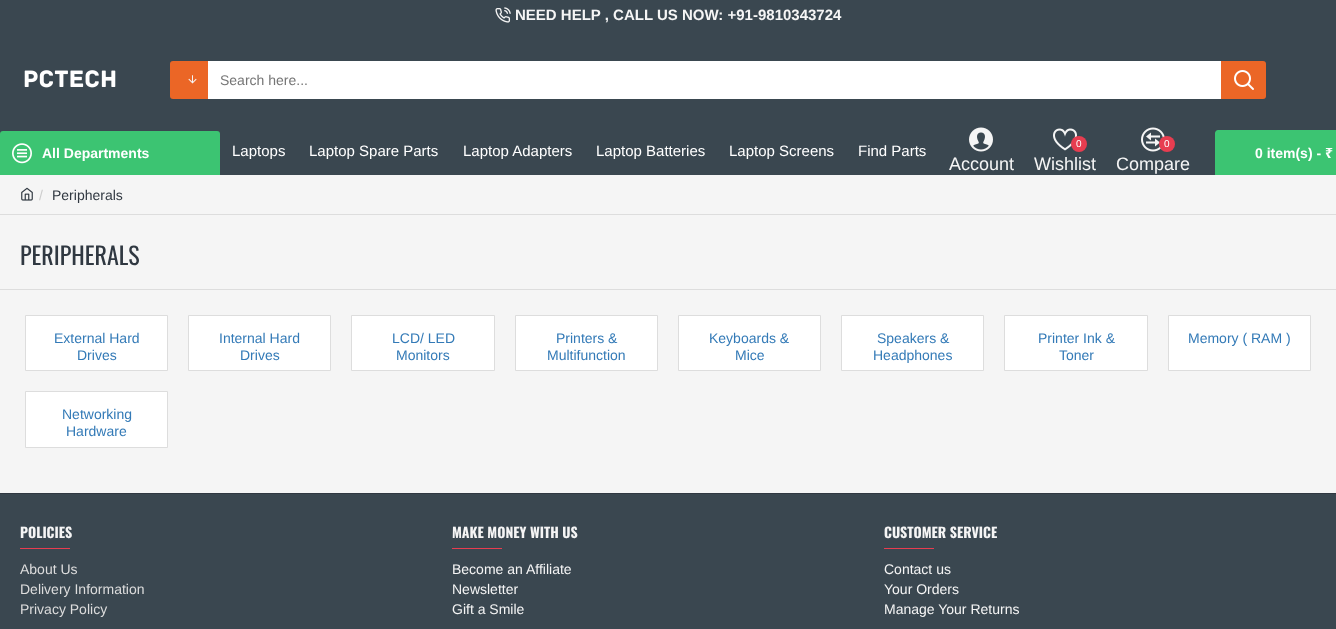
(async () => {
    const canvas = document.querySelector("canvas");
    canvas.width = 1336;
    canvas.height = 629;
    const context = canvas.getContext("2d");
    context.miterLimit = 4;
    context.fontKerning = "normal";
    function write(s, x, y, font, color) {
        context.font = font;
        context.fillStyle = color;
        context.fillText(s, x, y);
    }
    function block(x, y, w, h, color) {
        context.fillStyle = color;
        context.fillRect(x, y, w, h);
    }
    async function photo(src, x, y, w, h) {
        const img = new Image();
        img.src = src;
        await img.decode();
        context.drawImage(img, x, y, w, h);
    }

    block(0, 0, 1336, 629, "rgb(245, 245, 245)");
    block(0, 0, 1336, 175, "rgb(58, 71, 80)");
    await photo("media/1.png", 495, 7, 16, 16);
    write("NEED HELP , CALL US NOW: +91-9810343724", 515, 20, "bold 15px Liberation Sans", "rgb(245, 245, 245)");
    await photo("media/2.png", 24, 70, 92, 18);
    context.fillStyle = "rgb(235, 102, 38)";
    context.beginPath();
    context.roundRect(170, 61, 38, 38, [3, 0, 0, 3]);
    context.fill();
    await photo("media/3.png", 188, 75, 9, 9);
    block(208, 61, 1013, 38, "rgb(255, 255, 255)");
    write("Search here...", 220, 85, "14px Liberation Sans", "rgb(117, 117, 117)");
    context.fillStyle = "rgb(235, 102, 38)";
    context.beginPath();
    context.roundRect(1221, 61, 45, 38, [0, 3, 3, 0]);
    context.fill();
    await photo("media/4.png", 1234, 70, 20, 20);
    context.fillStyle = "rgb(60, 196, 114)";
    context.beginPath();
    context.roundRect(0, 131, 220, 44, [3, 3, 0, 0]);
    context.fill();
    await photo("media/5.png", 12, 143, 20, 21);
    write("All Departments", 42, 158, "bold 14px Liberation Sans", "rgb(255, 255, 255)");
    write("Laptops", 232, 156, "15px Liberation Sans", "rgb(255, 255, 255)");
    write("Laptop Spare Parts", 309, 156, "15px Liberation Sans", "rgb(255, 255, 255)");
    write("Laptop Adapters", 463, 156, "15px Liberation Sans", "rgb(255, 255, 255)");
    write("Laptop Batteries", 596, 156, "15px Liberation Sans", "rgb(255, 255, 255)");
    write("Laptop Screens", 729, 156, "15px Liberation Sans", "rgb(255, 255, 255)");
    write("Find Parts", 858, 156, "15px Liberation Sans", "rgb(255, 255, 255)");
    await photo("media/6.png", 969, 127, 24, 25);
    write("Account", 949, 170, "18px Liberation Sans", "rgb(245, 245, 245)");
    await photo("media/7.png", 1053, 128, 24, 23);
    context.fillStyle = "rgb(231, 61, 80)";
    context.beginPath();
    context.arc(1079, 144, 8, 0, Math.PI * 2);
    context.fill();
    write("0", 1076, 147, "10px Liberation Sans", "rgb(255, 255, 255)");
    write("Wishlist", 1034, 170, "18px Liberation Sans", "rgb(245, 245, 245)");
    await photo("media/8.png", 1141, 127, 24, 25);
    context.fillStyle = "rgb(231, 61, 80)";
    context.beginPath();
    context.arc(1167, 144, 8, 0, Math.PI * 2);
    context.fill();
    write("0", 1164, 147, "10px Liberation Sans", "rgb(255, 255, 255)");
    write("Compare", 1116, 170, "18px Liberation Sans", "rgb(245, 245, 245)");
    context.fillStyle = "rgb(60, 196, 114)";
    context.beginPath();
    context.moveTo(1218, 130);
    context.lineTo(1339, 130);
    context.lineTo(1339, 175);
    context.lineTo(1215, 175);
    context.lineTo(1215, 133);
    context.bezierCurveTo(1215, 131.5, 1216.5, 130, 1218, 130);
    context.closePath();
    context.fill();
    write("0 item(s) -", 1255, 158, "bold 14px Liberation Sans", "rgb(255, 255, 255)");
    write("₹", 1325, 158, "bold 14px Noto Sans", "rgb(255, 255, 255)");
    await photo("media/9.png", 21, 187, 12, 14);
    write("/", 39, 200, "14px Liberation Sans", "rgb(204, 204, 204)");
    write("Peripherals", 52, 200, "14px Liberation Sans", "rgb(48, 56, 65)");
    block(0, 214, 1336, 1, "rgb(221, 221, 221)");
    block(0, 289, 1336, 1, "rgb(221, 221, 221)");
    write("PERIPHERALS", 20, 265, "24px Oswald", "rgb(48, 56, 65)");
    context.fillStyle = "rgb(255, 255, 255)";
    context.beginPath();
    context.rect(25.5, 315.5, 142, 55);
    context.fill();
    context.strokeStyle = "rgb(221, 221, 221)";
    context.stroke();
    write("External Hard", 54, 343, "14px Liberation Sans", "rgb(51, 122, 183)");
    write("Drives", 77, 360, "14px Liberation Sans", "rgb(51, 122, 183)");
    context.fillStyle = "rgb(255, 255, 255)";
    context.beginPath();
    context.rect(188.5, 315.5, 142, 55);
    context.fill();
    context.stroke();
    write("Internal Hard", 219, 343, "14px Liberation Sans", "rgb(51, 122, 183)");
    write("Drives", 240, 360, "14px Liberation Sans", "rgb(51, 122, 183)");
    context.fillStyle = "rgb(255, 255, 255)";
    context.beginPath();
    context.rect(351.5, 315.5, 143, 55);
    context.fill();
    context.stroke();
    write("LCD/ LED", 392, 343, "14px Liberation Sans", "rgb(51, 122, 183)");
    write("Monitors", 396, 360, "14px Liberation Sans", "rgb(51, 122, 183)");
    context.fillStyle = "rgb(255, 255, 255)";
    context.beginPath();
    context.rect(515.5, 315.5, 142, 55);
    context.fill();
    context.stroke();
    write("Printers &", 556, 343, "14px Liberation Sans", "rgb(51, 122, 183)");
    write("Multifunction", 547, 360, "14px Liberation Sans", "rgb(51, 122, 183)");
    context.fillStyle = "rgb(255, 255, 255)";
    context.beginPath();
    context.rect(678.5, 315.5, 142, 55);
    context.fill();
    context.stroke();
    write("Keyboards &", 709, 343, "14px Liberation Sans", "rgb(51, 122, 183)");
    write("Mice", 735, 360, "14px Liberation Sans", "rgb(51, 122, 183)");
    context.fillStyle = "rgb(255, 255, 255)";
    context.beginPath();
    context.rect(841.5, 315.5, 142, 55);
    context.fill();
    context.stroke();
    write("Speakers &", 877, 343, "14px Liberation Sans", "rgb(51, 122, 183)");
    write("Headphones", 873, 360, "14px Liberation Sans", "rgb(51, 122, 183)");
    context.fillStyle = "rgb(255, 255, 255)";
    context.beginPath();
    context.rect(1004.5, 315.5, 143, 55);
    context.fill();
    context.stroke();
    write("Printer Ink &", 1038, 343, "14px Liberation Sans", "rgb(51, 122, 183)");
    write("Toner", 1059, 360, "14px Liberation Sans", "rgb(51, 122, 183)");
    context.fillStyle = "rgb(255, 255, 255)";
    context.beginPath();
    context.rect(1168.5, 315.5, 142, 55);
    context.fill();
    context.stroke();
    write("Memory ( RAM )", 1188, 343, "14px Liberation Sans", "rgb(51, 122, 183)");
    context.fillStyle = "rgb(255, 255, 255)";
    context.beginPath();
    context.rect(25.5, 391.5, 142, 56);
    context.fill();
    context.stroke();
    write("Networking", 62, 419, "14px Liberation Sans", "rgb(51, 122, 183)");
    write("Hardware", 66, 436, "14px Liberation Sans", "rgb(51, 122, 183)");
    block(0, 494, 1336, 135, "rgb(58, 71, 80)");
    block(0, 493, 1336, 1, "rgb(48, 56, 65)");
    write("POLICIES", 20, 538, "bold 14px Oswald", "rgb(245, 245, 245)");
    block(20, 548, 50, 1, "rgb(231, 61, 80)");
    write("About Us", 20, 574, "14px Liberation Sans", "rgb(221, 221, 221)");
    write("Delivery Information", 20, 594, "14px Liberation Sans", "rgb(221, 221, 221)");
    write("Privacy Policy", 20, 614, "14px Liberation Sans", "rgb(221, 221, 221)");
    write("MAKE MONEY WITH US", 452, 538, "bold 14px Oswald", "rgb(245, 245, 245)");
    block(452, 548, 50, 1, "rgb(231, 61, 80)");
    write("Become an Affiliate", 452, 574, "14px Liberation Sans", "rgb(245, 245, 245)");
    write("Newsletter", 452, 594, "14px Liberation Sans", "rgb(245, 245, 245)");
    write("Gift a Smile", 452, 614, "14px Liberation Sans", "rgb(245, 245, 245)");
    write("CUSTOMER SERVICE", 884, 538, "bold 14px Oswald", "rgb(245, 245, 245)");
    block(884, 548, 50, 1, "rgb(231, 61, 80)");
    write("Contact us", 884, 574, "14px Liberation Sans", "rgb(245, 245, 245)");
    write("Your Orders", 884, 594, "14px Liberation Sans", "rgb(245, 245, 245)");
    write("Manage Your Returns", 884, 614, "14px Liberation Sans", "rgb(245, 245, 245)");
})();
